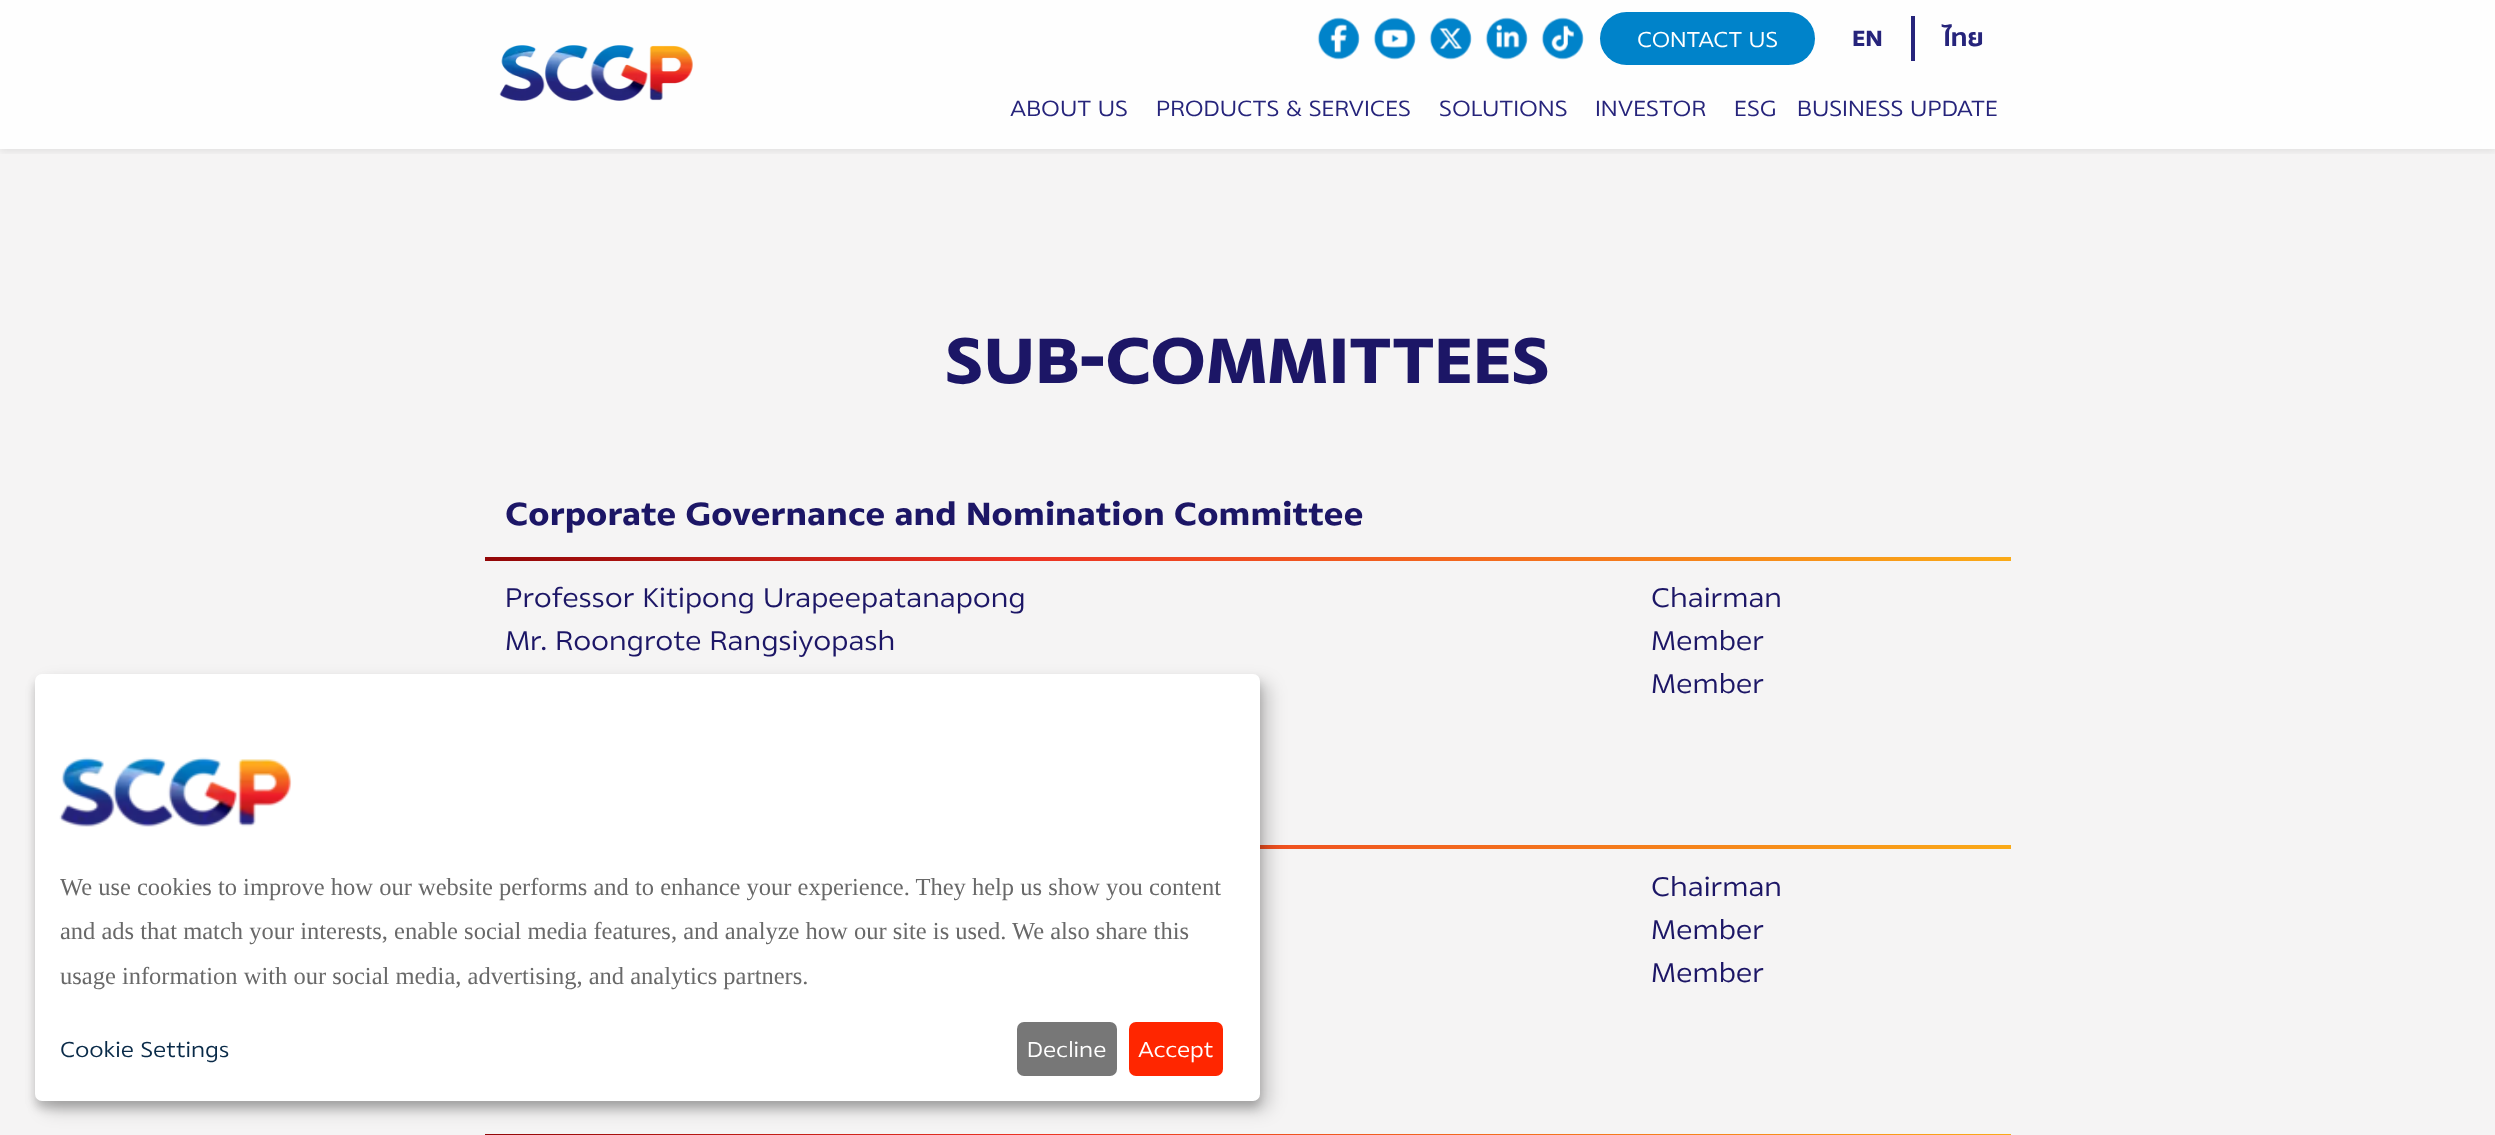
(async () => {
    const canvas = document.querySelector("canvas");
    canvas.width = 2495;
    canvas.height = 1135;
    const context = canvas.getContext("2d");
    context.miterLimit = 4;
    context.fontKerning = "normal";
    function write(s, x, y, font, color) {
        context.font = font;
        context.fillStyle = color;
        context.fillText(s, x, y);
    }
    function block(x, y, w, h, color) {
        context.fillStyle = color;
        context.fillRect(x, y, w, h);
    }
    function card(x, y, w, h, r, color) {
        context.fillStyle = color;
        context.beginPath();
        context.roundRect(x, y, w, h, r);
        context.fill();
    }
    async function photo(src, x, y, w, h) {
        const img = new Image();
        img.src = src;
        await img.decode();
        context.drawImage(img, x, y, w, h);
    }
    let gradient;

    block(0, 0, 2495, 1135, "rgb(245, 244, 244)");
    block(0, 0, 2495, 149, "rgb(254, 254, 254)");
    await photo("media/1.png", 1317, 17, 43, 43);
    await photo("media/2.png", 1373, 17, 43, 43);
    await photo("media/3.png", 1429, 17, 43, 43);
    await photo("media/4.png", 1485, 17, 43, 43);
    await photo("media/5.png", 1541, 17, 43, 43);
    card(1600, 12, 215, 53, 26.5, "rgb(0, 131, 202)");
    write("CONTACT US", 1637, 47, "24.5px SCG", "rgb(255, 255, 255)");
    block(1911, 16, 4, 45, "rgb(38, 36, 123)");
    write("EN", 1852, 46, "bold 25px SCG", "rgb(38, 36, 123)");
    write("ไทย", 1942, 46, "bold 25px SCG", "rgb(38, 36, 123)");
    context.save();
    context.beginPath();
    context.rect(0, 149, 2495, 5);
    context.clip();
    context.fillStyle = "rgba(0, 0, 0, 0.07)";
    context.filter = "blur(3.5px)";
    context.beginPath();
    context.rect(0, 74, 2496, 78);
    context.fill();
    context.filter = "none";
    context.restore();
    await photo("media/6.png", 499, 45, 194, 56);
    write("ABOUT US", 1010, 116, "25px SCG", "rgb(38, 36, 123)");
    write("PRODUCTS & SERVICES", 1156, 116, "25px SCG", "rgb(38, 36, 123)");
    write("SOLUTIONS", 1439, 116, "25px SCG", "rgb(38, 36, 123)");
    write("INVESTOR", 1595, 116, "25px SCG", "rgb(38, 36, 123)");
    write("ESG", 1734, 116, "25px SCG", "rgb(38, 36, 123)");
    write("BUSINESS UPDATE", 1797, 116, "25px SCG", "rgb(38, 36, 123)");
    write("SUB-COMMITTEES", 945, 383, "bold 72.75px SCG", "rgb(28, 22, 102)");
    write("Corporate Governance and Nomination Committee", 505, 525, "bold 36.4px SCG", "rgb(28, 22, 102)");
    gradient = context.createLinearGradient(485, 558, 2011, 558);
    gradient.addColorStop(0, "rgb(146, 6, 7)");
    gradient.addColorStop(0.35, "rgb(236, 50, 35)");
    gradient.addColorStop(1, "rgb(250, 170, 23)");
    context.fillStyle = gradient;
    context.fillRect(485, 557, 1526, 4);
    write("Professor Kitipong Urapeepatanapong", 505, 607, "30.75px SCG", "rgb(28, 22, 102)");
    write("Chairman", 1651, 607, "30.75px SCG", "rgb(28, 22, 102)");
    write("Mr. Roongrote Rangsiyopash", 505, 650, "30.75px SCG", "rgb(28, 22, 102)");
    write("Member", 1651, 650, "30.75px SCG", "rgb(28, 22, 102)");
    write("Member", 1651, 693, "30.75px SCG", "rgb(28, 22, 102)");
    gradient = context.createLinearGradient(485, 847, 2011, 847);
    gradient.addColorStop(0, "rgb(146, 6, 7)");
    gradient.addColorStop(0.35, "rgb(236, 50, 35)");
    gradient.addColorStop(1, "rgb(250, 170, 23)");
    context.fillStyle = gradient;
    context.fillRect(1260, 845, 751, 4);
    write("Chairman", 1651, 896, "30.75px SCG", "rgb(28, 22, 102)");
    write("Member", 1651, 939, "30.75px SCG", "rgb(28, 22, 102)");
    write("Member", 1651, 982, "30.75px SCG", "rgb(28, 22, 102)");
    gradient = context.createLinearGradient(485, 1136, 2011, 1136);
    gradient.addColorStop(0, "rgb(146, 6, 7)");
    gradient.addColorStop(0.35, "rgb(236, 50, 35)");
    gradient.addColorStop(1, "rgb(250, 170, 23)");
    context.fillStyle = gradient;
    context.fillRect(485, 1134, 1526, 1);
    context.fillStyle = "rgba(0, 0, 0, 0.19)";
    context.filter = "blur(9px)";
    context.beginPath();
    context.roundRect(44, 683, 1225, 427, 7);
    context.fill();
    context.filter = "none";
    context.fillStyle = "rgba(0, 0, 0, 0.2)";
    context.filter = "blur(5px)";
    context.beginPath();
    context.roundRect(35, 681, 1225, 427, 7);
    context.fill();
    context.filter = "none";
    card(35, 674, 1225, 427, 7, "rgb(255, 255, 255)");
    await photo("media/7.png", 59, 757, 233, 70);
    write("We use cookies to improve how our website performs and to enhance your experience. They help us show you content", 60, 895, "24.5px Liberation Serif", "rgb(105, 105, 105)");
    write("and ads that match your interests, enable social media features, and analyze how our site is used. We also share this", 60, 939, "24.5px Liberation Serif", "rgb(105, 105, 105)");
    write("usage information with our social media, advertising, and analytics partners.", 60, 984, "24.5px Liberation Serif", "rgb(105, 105, 105)");
    write("Cookie Settings", 60, 1057, "24.5px SCG", "rgb(9, 42, 72)");
    card(1017, 1022, 100, 54, 7, "rgb(119, 119, 119)");
    write("Decline", 1027, 1057, "24.5px SCG", "rgb(255, 255, 255)");
    card(1129, 1022, 94, 54, 7, "rgb(255, 38, 0)");
    write("Accept", 1138, 1057, "24.5px SCG", "rgb(255, 255, 255)");
})();
